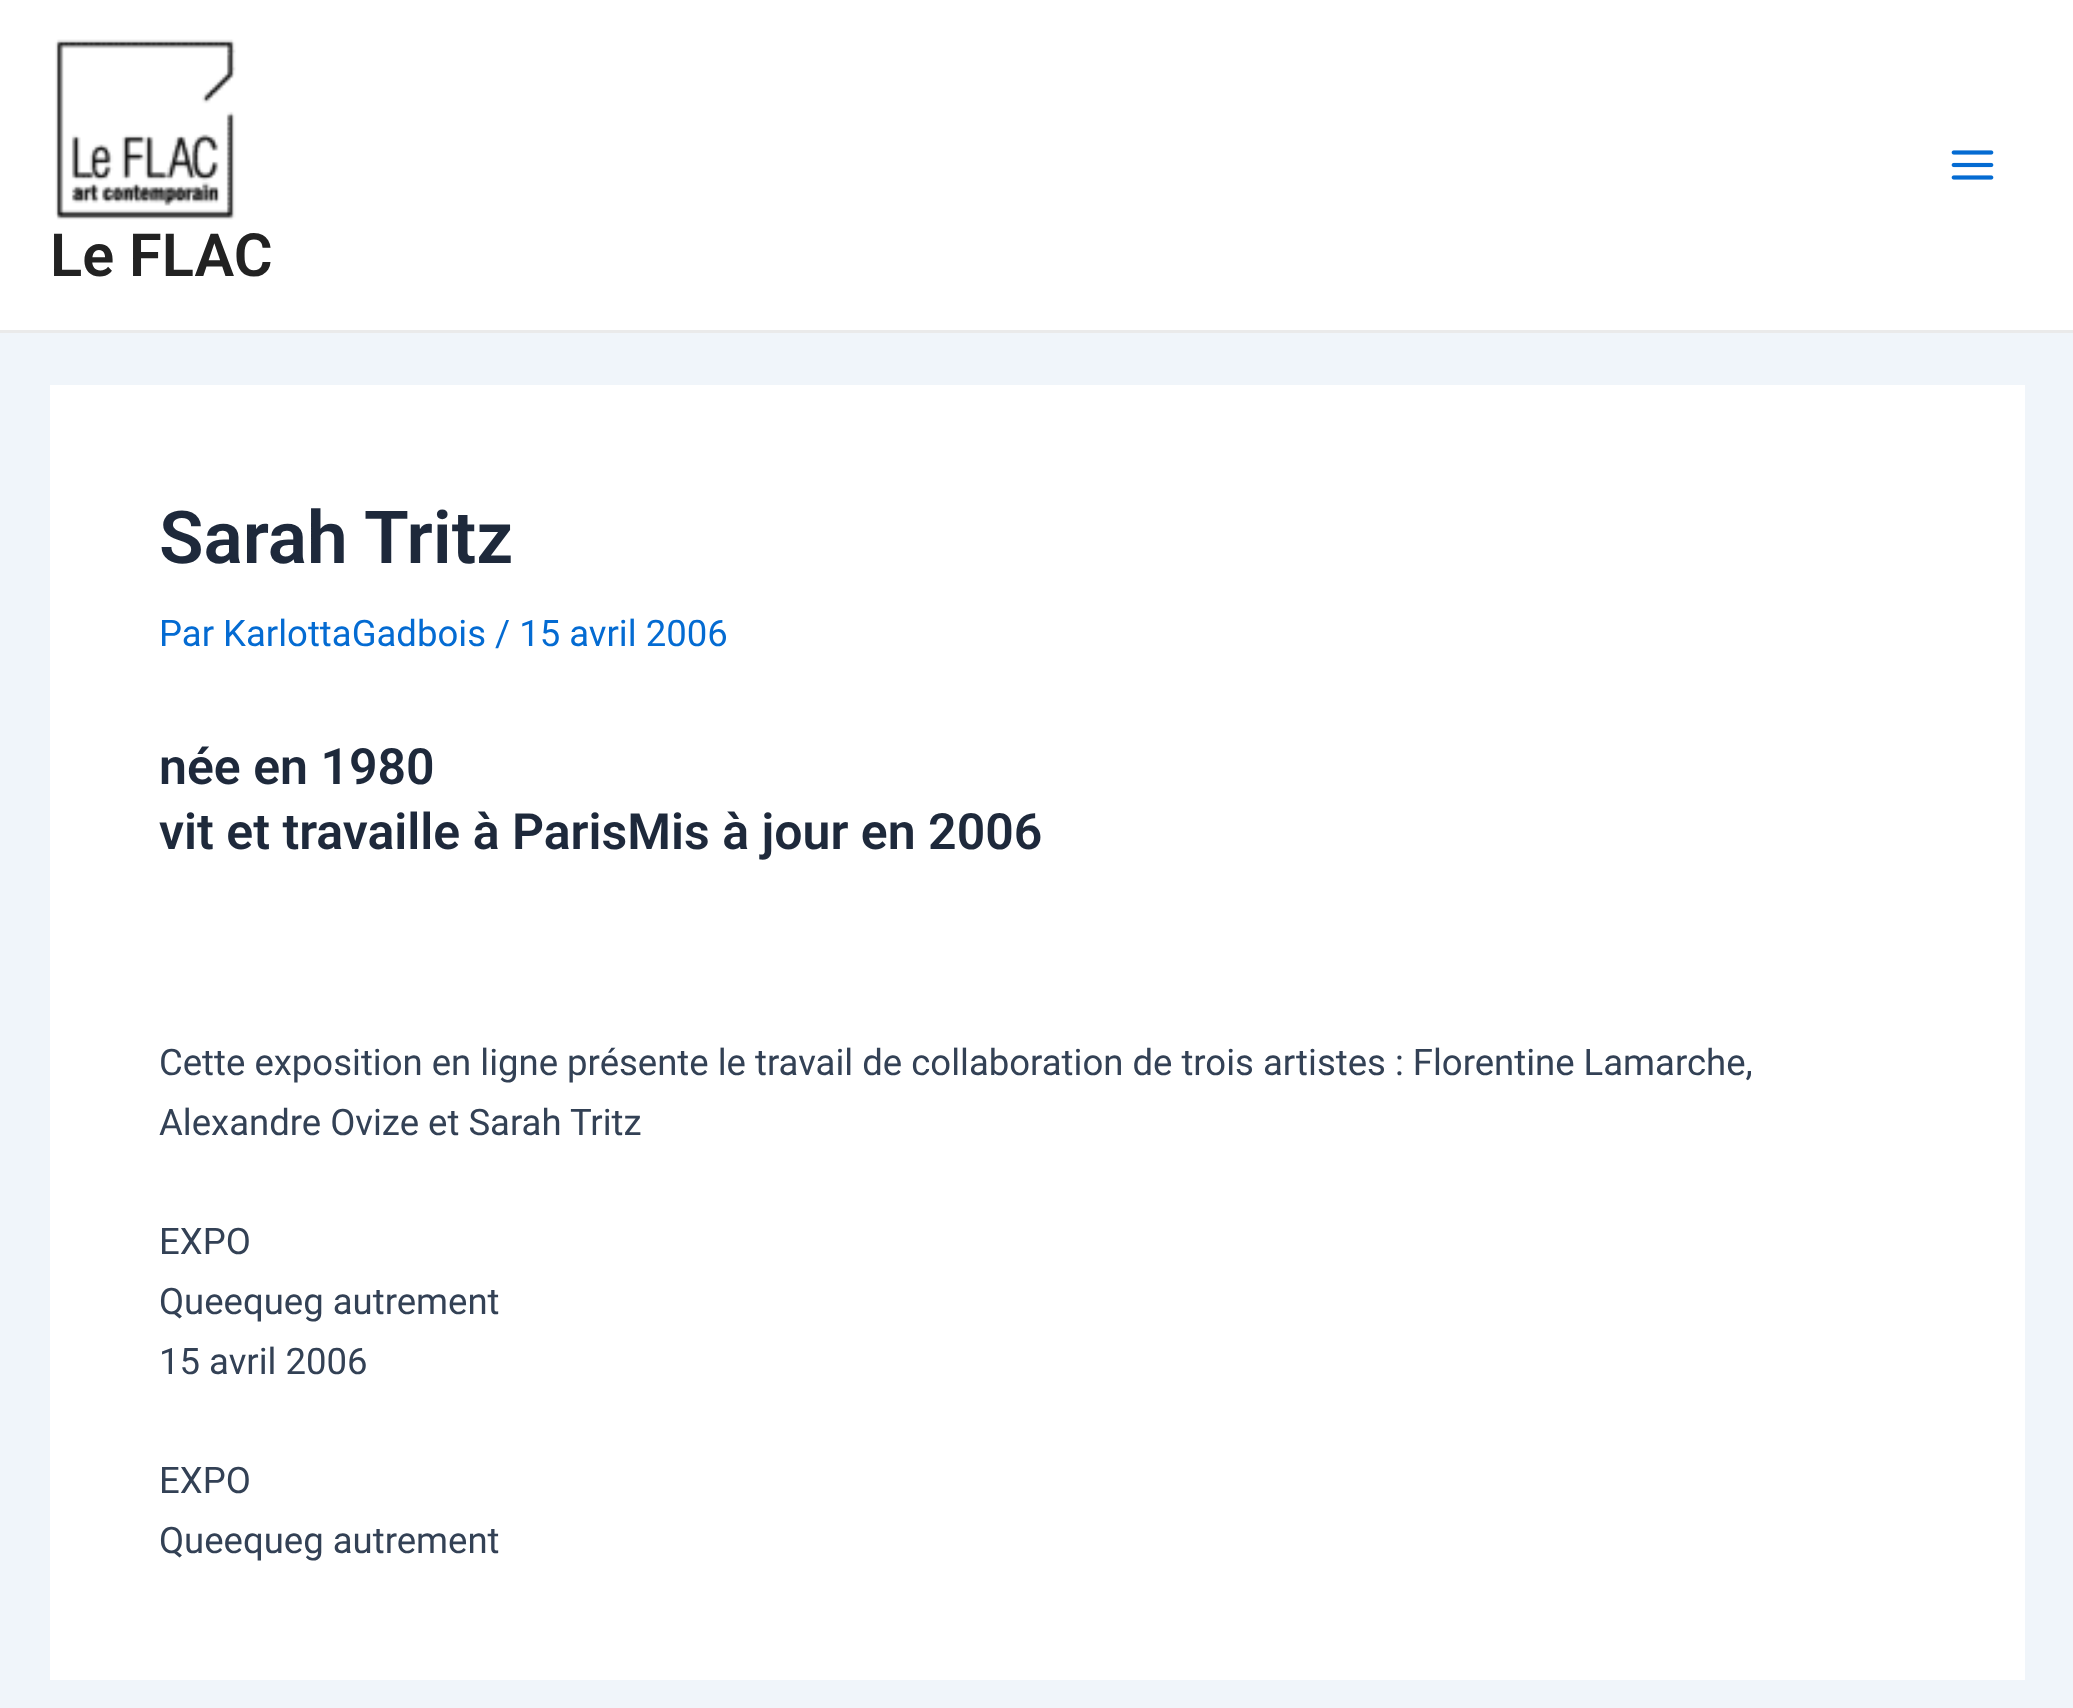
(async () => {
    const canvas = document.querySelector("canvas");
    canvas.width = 2073;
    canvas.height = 1708;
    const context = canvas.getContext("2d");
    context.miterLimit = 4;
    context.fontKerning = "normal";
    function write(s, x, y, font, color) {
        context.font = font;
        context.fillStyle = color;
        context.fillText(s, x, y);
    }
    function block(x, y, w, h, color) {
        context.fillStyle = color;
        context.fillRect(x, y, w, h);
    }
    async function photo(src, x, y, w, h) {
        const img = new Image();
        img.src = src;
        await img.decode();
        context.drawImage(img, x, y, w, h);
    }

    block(0, 0, 2073, 1708, "rgb(240, 245, 250)");
    block(0, 0, 2073, 330, "rgb(255, 255, 255)");
    block(0, 330, 2073, 3, "rgb(234, 234, 234)");
    await photo("media/1.png", 1951, 150, 43, 30);
    await photo("media/2.png", 55, 39, 181, 181);
    write("Le FLAC", 50, 276, "600 59.5px Roboto", "rgb(34, 34, 34)");
    block(50, 385, 1975, 1295, "rgb(255, 255, 255)");
    write("Sarah Tritz", 159, 563, "600 73px Roboto", "rgb(30, 41, 59)");
    write("Par KarlottaGadbois / 15 avril 2006", 159, 646, "36.5px Roboto", "rgb(4, 107, 210)");
    write("née en 1980", 159, 784, "600 50px Roboto", "rgb(30, 41, 59)");
    write("vit et travaille à ParisMis à jour en 2006", 159, 849, "600 50px Roboto", "rgb(30, 41, 59)");
    write("Cette exposition en ligne présente le travail de collaboration de trois artistes : Florentine Lamarche,", 159, 1075, "36.5px Roboto", "rgb(51, 65, 85)");
    write("Alexandre Ovize et Sarah Tritz", 159, 1135, "36.5px Roboto", "rgb(51, 65, 85)");
    write("EXPO", 159, 1254, "36.5px Roboto", "rgb(51, 65, 85)");
    write("Queequeg autrement", 159, 1314, "36.5px Roboto", "rgb(51, 65, 85)");
    write("15 avril 2006", 159, 1374, "36.5px Roboto", "rgb(51, 65, 85)");
    write("EXPO", 159, 1493, "36.5px Roboto", "rgb(51, 65, 85)");
    write("Queequeg autrement", 159, 1553, "36.5px Roboto", "rgb(51, 65, 85)");
})();
